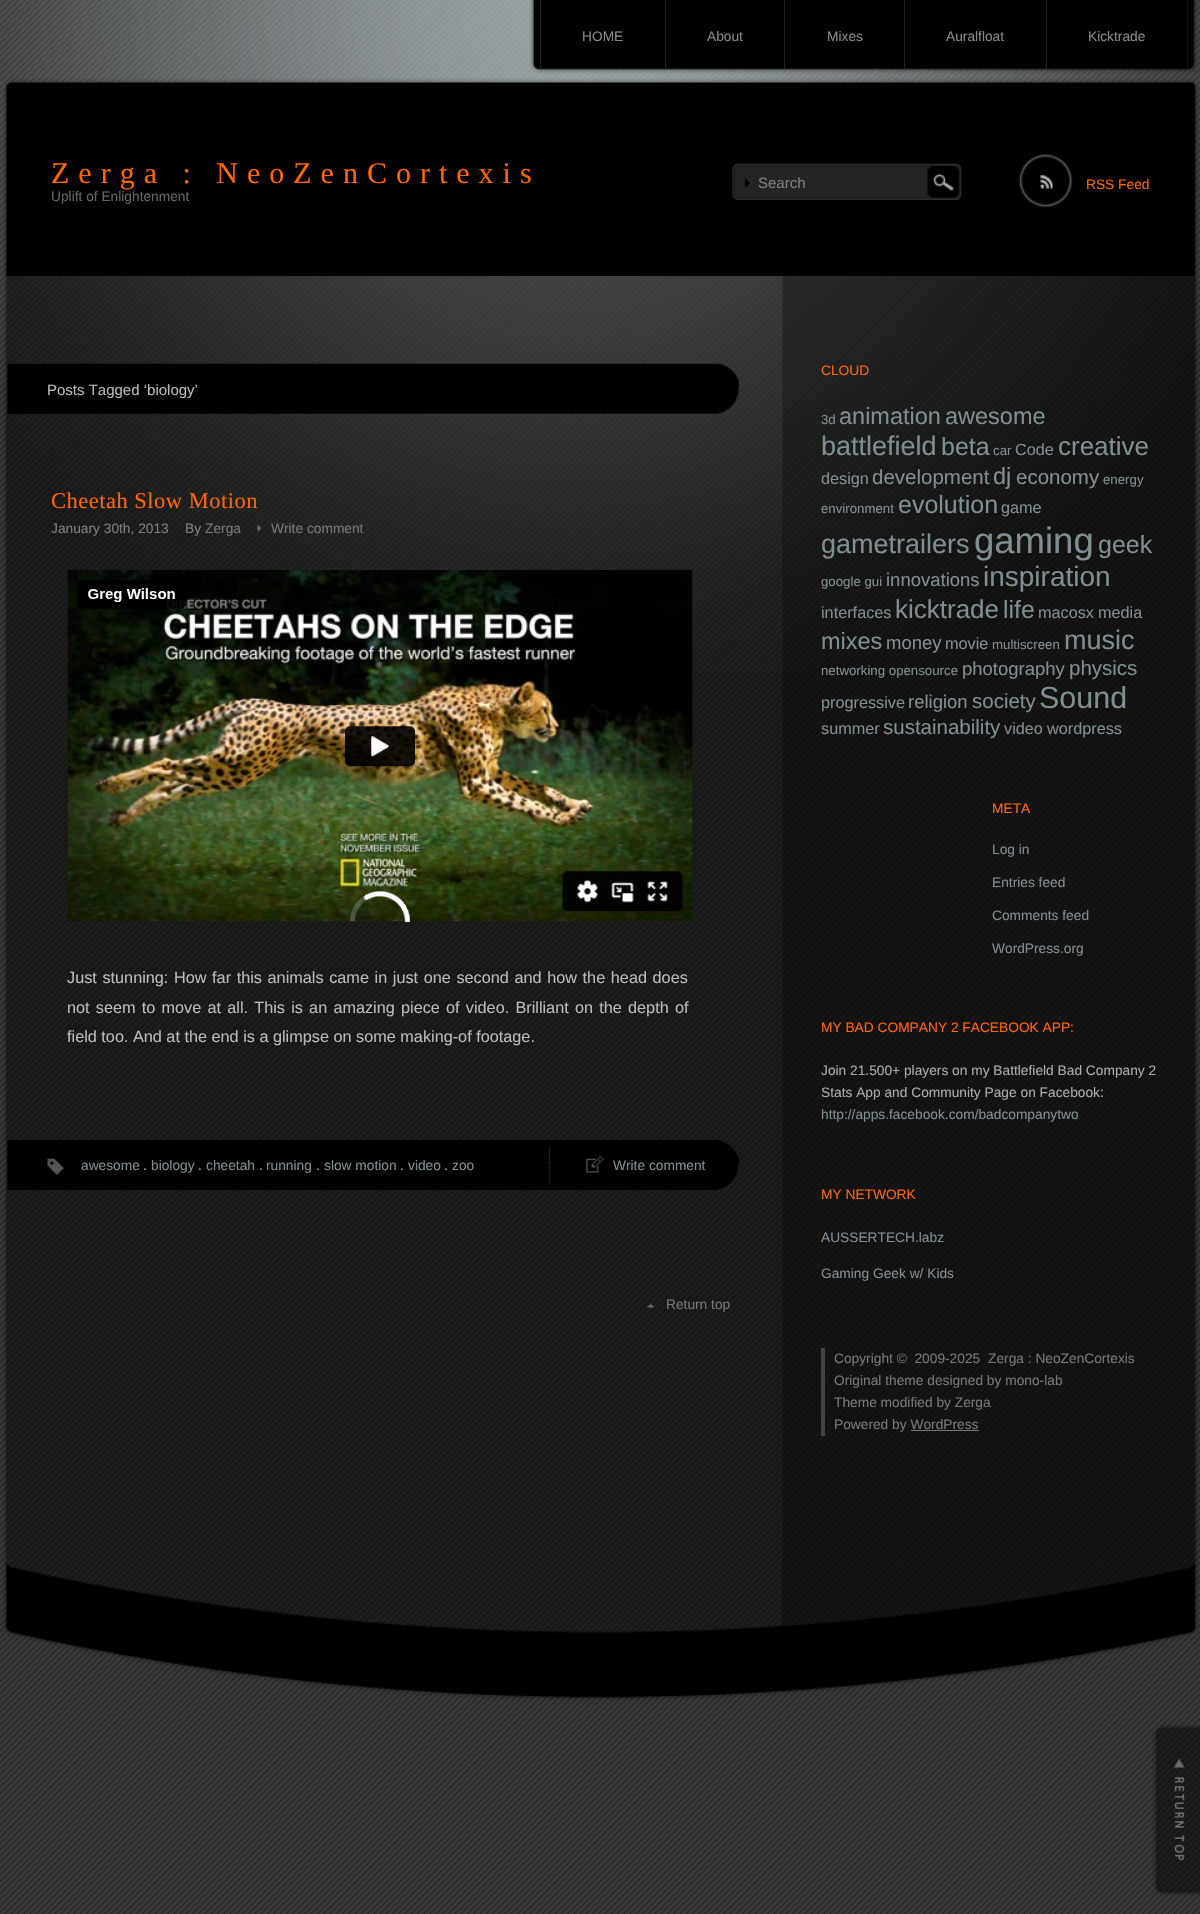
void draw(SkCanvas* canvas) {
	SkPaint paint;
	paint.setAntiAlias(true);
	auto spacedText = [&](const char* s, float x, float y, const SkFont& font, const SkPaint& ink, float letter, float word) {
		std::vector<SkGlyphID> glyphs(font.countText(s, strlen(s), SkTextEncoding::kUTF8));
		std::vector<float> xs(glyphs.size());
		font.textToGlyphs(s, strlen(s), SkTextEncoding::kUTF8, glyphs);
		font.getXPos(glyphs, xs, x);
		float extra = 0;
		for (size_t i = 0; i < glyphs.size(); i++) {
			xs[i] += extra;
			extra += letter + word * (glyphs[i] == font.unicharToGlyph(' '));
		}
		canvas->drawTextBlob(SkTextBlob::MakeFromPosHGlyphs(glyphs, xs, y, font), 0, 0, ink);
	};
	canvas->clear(0xffffffff);
	canvas->drawImageRect(SkImages::DeferredFromEncodedData(SkData::MakeFromFileName("img1.png")), SkRect::MakeXYWH(0, 0, 1200, 1914), SkSamplingOptions());
	canvas->drawImageRect(SkImages::DeferredFromEncodedData(SkData::MakeFromFileName("img2.png")), SkRect::MakeXYWH(0, 0, 1200, 672), SkSamplingOptions());
	canvas->drawImageRect(SkImages::DeferredFromEncodedData(SkData::MakeFromFileName("img3.png")), SkRect::MakeXYWH(529, 0, 11, 73), SkSamplingOptions());
	canvas->drawImageRect(SkImages::DeferredFromEncodedData(SkData::MakeFromFileName("img5.png")), SkRect::MakeXYWH(1187, 0, 10, 72), SkSamplingOptions());
	canvas->drawImageRect(SkImages::DeferredFromEncodedData(SkData::MakeFromFileName("img4.png")), SkRect::MakeXYWH(540, 0, 648, 74), SkSamplingOptions());
	paint.setColor(0xff222222);
	canvas->drawRect(SkRect::MakeXYWH(540, 0, 1, 69), paint);
	SkFont f1(fontMgr->matchFamilyStyle("Liberation Sans", SkFontStyle::Normal()), 13.75);
	f1.setSubpixel(true);
	paint.setColor(0xff888888);
	canvas->drawString("HOME", 582, 41, f1, paint);
	paint.setColor(0xff222222);
	canvas->drawRect(SkRect::MakeXYWH(665, 0, 1, 69), paint);
	paint.setColor(0xff888888);
	canvas->drawString("About", 707, 41, f1, paint);
	paint.setColor(0xff222222);
	canvas->drawRect(SkRect::MakeXYWH(784, 0, 1, 69), paint);
	paint.setColor(0xff888888);
	canvas->drawString("Mixes", 827, 41, f1, paint);
	paint.setColor(0xff222222);
	canvas->drawRect(SkRect::MakeXYWH(904, 0, 1, 69), paint);
	paint.setColor(0xff888888);
	canvas->drawString("Auralfloat", 946, 41, f1, paint);
	paint.setColor(0xff222222);
	canvas->drawRect(SkRect::MakeXYWH(1046, 0, 1, 69), paint);
	paint.setColor(0xff888888);
	canvas->drawString("Kicktrade", 1088, 41, f1, paint);
	canvas->drawImageRect(SkImages::DeferredFromEncodedData(SkData::MakeFromFileName("img6.png")), SkRect::MakeXYWH(3, 78, 1196, 199), SkSamplingOptions());
	SkFont f2(fontMgr->matchFamilyStyle("Liberation Serif", SkFontStyle::Normal()), 30);
	f2.setSubpixel(true);
	paint.setColor(0xffff6600);
	spacedText("Zerga : NeoZenCortexis", 51, 183, f2, paint, 9, 0);
	paint.setColor(0xff666666);
	canvas->drawString("Uplift of Enlightenment", 51, 201, f1, paint);
	canvas->drawImageRect(SkImages::DeferredFromEncodedData(SkData::MakeFromFileName("img7.png")), SkRect::MakeXYWH(732, 163, 197, 37), SkSamplingOptions());
	SkFont f3(fontMgr->matchFamilyStyle("Liberation Sans", SkFontStyle::Normal()), 15);
	f3.setSubpixel(true);
	paint.setColor(0xff797f80);
	canvas->drawString("Search", 758, 188, f3, paint);
	canvas->drawImageRect(SkImages::DeferredFromEncodedData(SkData::MakeFromFileName("img8.png")), SkRect::MakeXYWH(927, 163, 35, 37), SkSamplingOptions());
	canvas->drawImageRect(SkImages::DeferredFromEncodedData(SkData::MakeFromFileName("img9.png")), SkRect::MakeXYWH(1019, 154, 54, 54), SkSamplingOptions());
	paint.setColor(0xffff6600);
	canvas->drawString("RSS Feed", 1086, 189, f1, paint);
	canvas->drawImageRect(SkImages::DeferredFromEncodedData(SkData::MakeFromFileName("img10.png")), SkRect::MakeXYWH(3, 276, 1196, 1286), SkSamplingOptions());
	canvas->drawImageRect(SkImages::DeferredFromEncodedData(SkData::MakeFromFileName("img11.png")), SkRect::MakeXYWH(7, 363, 732, 20), SkSamplingOptions());
	canvas->drawImageRect(SkImages::DeferredFromEncodedData(SkData::MakeFromFileName("img12.png")), SkRect::MakeXYWH(7, 380, 732, 34), SkSamplingOptions());
	paint.setColor(0xffb8babb);
	canvas->drawString("Posts Tagged ‘biology’", 47, 395, f3, paint);
	SkFont f4(fontMgr->matchFamilyStyle("Liberation Serif", SkFontStyle::Normal()), 22.5);
	f4.setSubpixel(true);
	paint.setColor(0xffff6600);
	spacedText("Cheetah Slow Motion", 51, 508, f4, paint, 0.5, 0);
	paint.setColor(0xff797f80);
	canvas->drawString("January 30th, 2013", 51, 533, f1, paint);
	canvas->drawString("By", 185, 533, f1, paint);
	paint.setColor(0xff777777);
	canvas->drawString("Zerga", 205, 533, f1, paint);
	canvas->drawImageRect(SkImages::DeferredFromEncodedData(SkData::MakeFromFileName("img13.png")), SkRect::MakeXYWH(257, 525, 5, 7), SkSamplingOptions());
	canvas->drawString("Write comment", 271, 533, f1, paint);
	canvas->drawImageRect(SkImages::DeferredFromEncodedData(SkData::MakeFromFileName("img14.png")), SkRect::MakeXYWH(67, 570, 626, 352), SkSamplingOptions());
	SkFont f5(fontMgr->matchFamilyStyle("Liberation Sans", SkFontStyle::Normal()), 16.25);
	f5.setSubpixel(true);
	paint.setColor(0xffb8babb);
	spacedText("Just stunning: How far this animals came in just one second and how the head does", 67, 983, f5, paint, 0, 1.1);
	spacedText("not seem to move at all. This is an amazing piece of video. Brilliant on the depth of", 67, 1013, f5, paint, 0, 1.7);
	canvas->drawString("field too. And at the end is a glimpse on some making-of footage.", 67, 1042, f5, paint);
	canvas->drawImageRect(SkImages::DeferredFromEncodedData(SkData::MakeFromFileName("img15.png")), SkRect::MakeXYWH(7, 1140, 732, 19), SkSamplingOptions());
	canvas->drawImageRect(SkImages::DeferredFromEncodedData(SkData::MakeFromFileName("img16.png")), SkRect::MakeXYWH(7, 1156, 732, 34), SkSamplingOptions());
	canvas->drawImageRect(SkImages::DeferredFromEncodedData(SkData::MakeFromFileName("img17.png")), SkRect::MakeXYWH(47, 1158, 17, 17), SkSamplingOptions());
	paint.setColor(0xff7f8e91);
	canvas->drawString("awesome", 81, 1170, f1, paint);
	paint.setColor(0xffb8babb);
	canvas->drawString(".", 143, 1170, f1, paint);
	paint.setColor(0xff7f8e91);
	canvas->drawString("biology", 151, 1170, f1, paint);
	paint.setColor(0xffb8babb);
	canvas->drawString(".", 198, 1170, f1, paint);
	paint.setColor(0xff7f8e91);
	canvas->drawString("cheetah", 206, 1170, f1, paint);
	paint.setColor(0xffb8babb);
	canvas->drawString(".", 259, 1170, f1, paint);
	paint.setColor(0xff7f8e91);
	canvas->drawString("running", 266, 1170, f1, paint);
	paint.setColor(0xffb8babb);
	canvas->drawString(".", 316, 1170, f1, paint);
	paint.setColor(0xff7f8e91);
	canvas->drawString("slow motion", 324, 1170, f1, paint);
	paint.setColor(0xffb8babb);
	canvas->drawString(".", 400, 1170, f1, paint);
	paint.setColor(0xff7f8e91);
	canvas->drawString("video", 408, 1170, f1, paint);
	paint.setColor(0xffb8babb);
	canvas->drawString(".", 444, 1170, f1, paint);
	paint.setColor(0xff7f8e91);
	canvas->drawString("zoo", 452, 1170, f1, paint);
	canvas->drawImageRect(SkImages::DeferredFromEncodedData(SkData::MakeFromFileName("img18.png")), SkRect::MakeXYWH(586, 1156, 18, 17), SkSamplingOptions());
	canvas->drawString("Write comment", 613, 1170, f1, paint);
	canvas->drawImageRect(SkImages::DeferredFromEncodedData(SkData::MakeFromFileName("img19.png")), SkRect::MakeXYWH(647, 1303, 7, 5), SkSamplingOptions());
	paint.setColor(0xff777777);
	canvas->drawString("Return top", 666, 1309, f1, paint);
	paint.setColor(0xffff6600);
	canvas->drawString("CLOUD", 821, 375, f1, paint);
	SkFont f6(fontMgr->matchFamilyStyle("Liberation Sans", SkFontStyle::Normal()), 13.25);
	f6.setSubpixel(true);
	paint.setColor(0xff7f8e91);
	canvas->drawString("3d", 821, 424, f6, paint);
	SkFont f7(fontMgr->matchFamilyStyle("Liberation Sans", SkFontStyle::Normal()), 23.5);
	f7.setSubpixel(true);
	canvas->drawString("animation", 839, 424, f7, paint);
	canvas->drawString("awesome", 945, 424, f7, paint);
	SkFont f8(fontMgr->matchFamilyStyle("Liberation Sans", SkFontStyle::Normal()), 27);
	f8.setSubpixel(true);
	canvas->drawString("battlefield", 821, 455, f8, paint);
	SkFont f9(fontMgr->matchFamilyStyle("Liberation Sans", SkFontStyle::Normal()), 25);
	f9.setSubpixel(true);
	canvas->drawString("beta", 941, 455, f9, paint);
	canvas->drawString("car", 993, 455, f6, paint);
	canvas->drawString("Code", 1015, 455, f5, paint);
	SkFont f10(fontMgr->matchFamilyStyle("Liberation Sans", SkFontStyle::Normal()), 26);
	f10.setSubpixel(true);
	canvas->drawString("creative", 1058, 455, f10, paint);
	canvas->drawString("design", 821, 484, f5, paint);
	SkFont f11(fontMgr->matchFamilyStyle("Liberation Sans", SkFontStyle::Normal()), 20.5);
	f11.setSubpixel(true);
	canvas->drawString("development", 872, 484, f11, paint);
	canvas->drawString("dj", 993, 484, f7, paint);
	canvas->drawString("economy", 1016, 484, f11, paint);
	canvas->drawString("energy", 1103, 484, f6, paint);
	canvas->drawString("environment", 821, 513, f6, paint);
	canvas->drawString("evolution", 898, 513, f9, paint);
	canvas->drawString("game", 1001, 513, f5, paint);
	canvas->drawString("gametrailers", 821, 553, f8, paint);
	SkFont f12(fontMgr->matchFamilyStyle("Liberation Sans", SkFontStyle::Normal()), 36.5);
	f12.setSubpixel(true);
	canvas->drawString("gaming", 974, 553, f12, paint);
	canvas->drawString("geek", 1098, 553, f9, paint);
	canvas->drawString("google gui", 821, 586, f6, paint);
	SkFont f13(fontMgr->matchFamilyStyle("Liberation Sans", SkFontStyle::Normal()), 18.5);
	f13.setSubpixel(true);
	canvas->drawString("innovations", 886, 586, f13, paint);
	SkFont f14(fontMgr->matchFamilyStyle("Liberation Sans", SkFontStyle::Normal()), 28);
	f14.setSubpixel(true);
	canvas->drawString("inspiration", 983, 586, f14, paint);
	canvas->drawString("interfaces", 821, 618, f5, paint);
	canvas->drawString("kicktrade", 895, 618, f10, paint);
	canvas->drawString("life", 1003, 618, f9, paint);
	canvas->drawString("macosx", 1038, 618, f5, paint);
	canvas->drawString("media", 1098, 618, f5, paint);
	canvas->drawString("mixes", 821, 649, f7, paint);
	canvas->drawString("money", 886, 649, f13, paint);
	canvas->drawString("movie", 945, 649, f5, paint);
	canvas->drawString("multiscreen", 992, 649, f6, paint);
	canvas->drawString("music", 1064, 649, f8, paint);
	canvas->drawString("networking opensource", 821, 675, f6, paint);
	canvas->drawString("photography", 962, 675, f13, paint);
	canvas->drawString("physics", 1069, 675, f11, paint);
	canvas->drawString("progressive", 821, 708, f5, paint);
	canvas->drawString("religion", 908, 708, f13, paint);
	canvas->drawString("society", 972, 708, f11, paint);
	SkFont f15(fontMgr->matchFamilyStyle("Liberation Sans", SkFontStyle::Normal()), 30.5);
	f15.setSubpixel(true);
	canvas->drawString("Sound", 1039, 708, f15, paint);
	canvas->drawString("summer", 821, 734, f5, paint);
	canvas->drawString("sustainability", 883, 734, f11, paint);
	canvas->drawString("video", 1004, 734, f5, paint);
	canvas->drawString("wordpress", 1047, 734, f5, paint);
	paint.setColor(0xffff6600);
	canvas->drawString("META", 992, 813, f1, paint);
	paint.setColor(0xff7f8e91);
	canvas->drawString("Log in", 992, 854, f1, paint);
	canvas->drawString("Entries feed", 992, 887, f1, paint);
	canvas->drawString("Comments feed", 992, 920, f1, paint);
	canvas->drawString("WordPress.org", 992, 953, f1, paint);
	paint.setColor(0xffff6600);
	canvas->drawString("MY BAD COMPANY 2 FACEBOOK APP:", 821, 1032, f1, paint);
	paint.setColor(0xffaaaaaa);
	canvas->drawString("Join 21.500+ players on my Battlefield Bad Company 2", 821, 1075, f1, paint);
	canvas->drawString("Stats App and Community Page on Facebook:", 821, 1097, f1, paint);
	paint.setColor(0xff7f8e91);
	canvas->drawString("http://apps.facebook.com/badcompanytwo", 821, 1119, f1, paint);
	paint.setColor(0xffff6600);
	canvas->drawString("MY NETWORK", 821, 1199, f1, paint);
	paint.setColor(0xff7f8e91);
	canvas->drawString("AUSSERTECH.labz", 821, 1242, f1, paint);
	canvas->drawString("Gaming Geek w/ Kids", 821, 1278, f1, paint);
	paint.setColor(0xff444444);
	canvas->drawRect(SkRect::MakeXYWH(821, 1348, 4, 88), paint);
	paint.setColor(0xff777777);
	canvas->drawString("Copyright ©  2009-2025", 834, 1363, f1, paint);
	canvas->drawString("Zerga : NeoZenCortexis", 988, 1363, f1, paint);
	canvas->drawString("Original theme designed by mono-lab", 834, 1385, f1, paint);
	canvas->drawString("Theme modified by Zerga", 834, 1407, f1, paint);
	canvas->drawString("Powered by WordPress", 834, 1429, f1, paint);
	canvas->drawRect(SkRect::MakeXYWH(911, 1430, 68, 1), paint);
	canvas->drawImageRect(SkImages::DeferredFromEncodedData(SkData::MakeFromFileName("img20.png")), SkRect::MakeXYWH(3, 1561, 1196, 139), SkSamplingOptions());
	canvas->drawImageRect(SkImages::DeferredFromEncodedData(SkData::MakeFromFileName("img21.png")), SkRect::MakeXYWH(1153, 1725, 47, 170), SkSamplingOptions());
}
